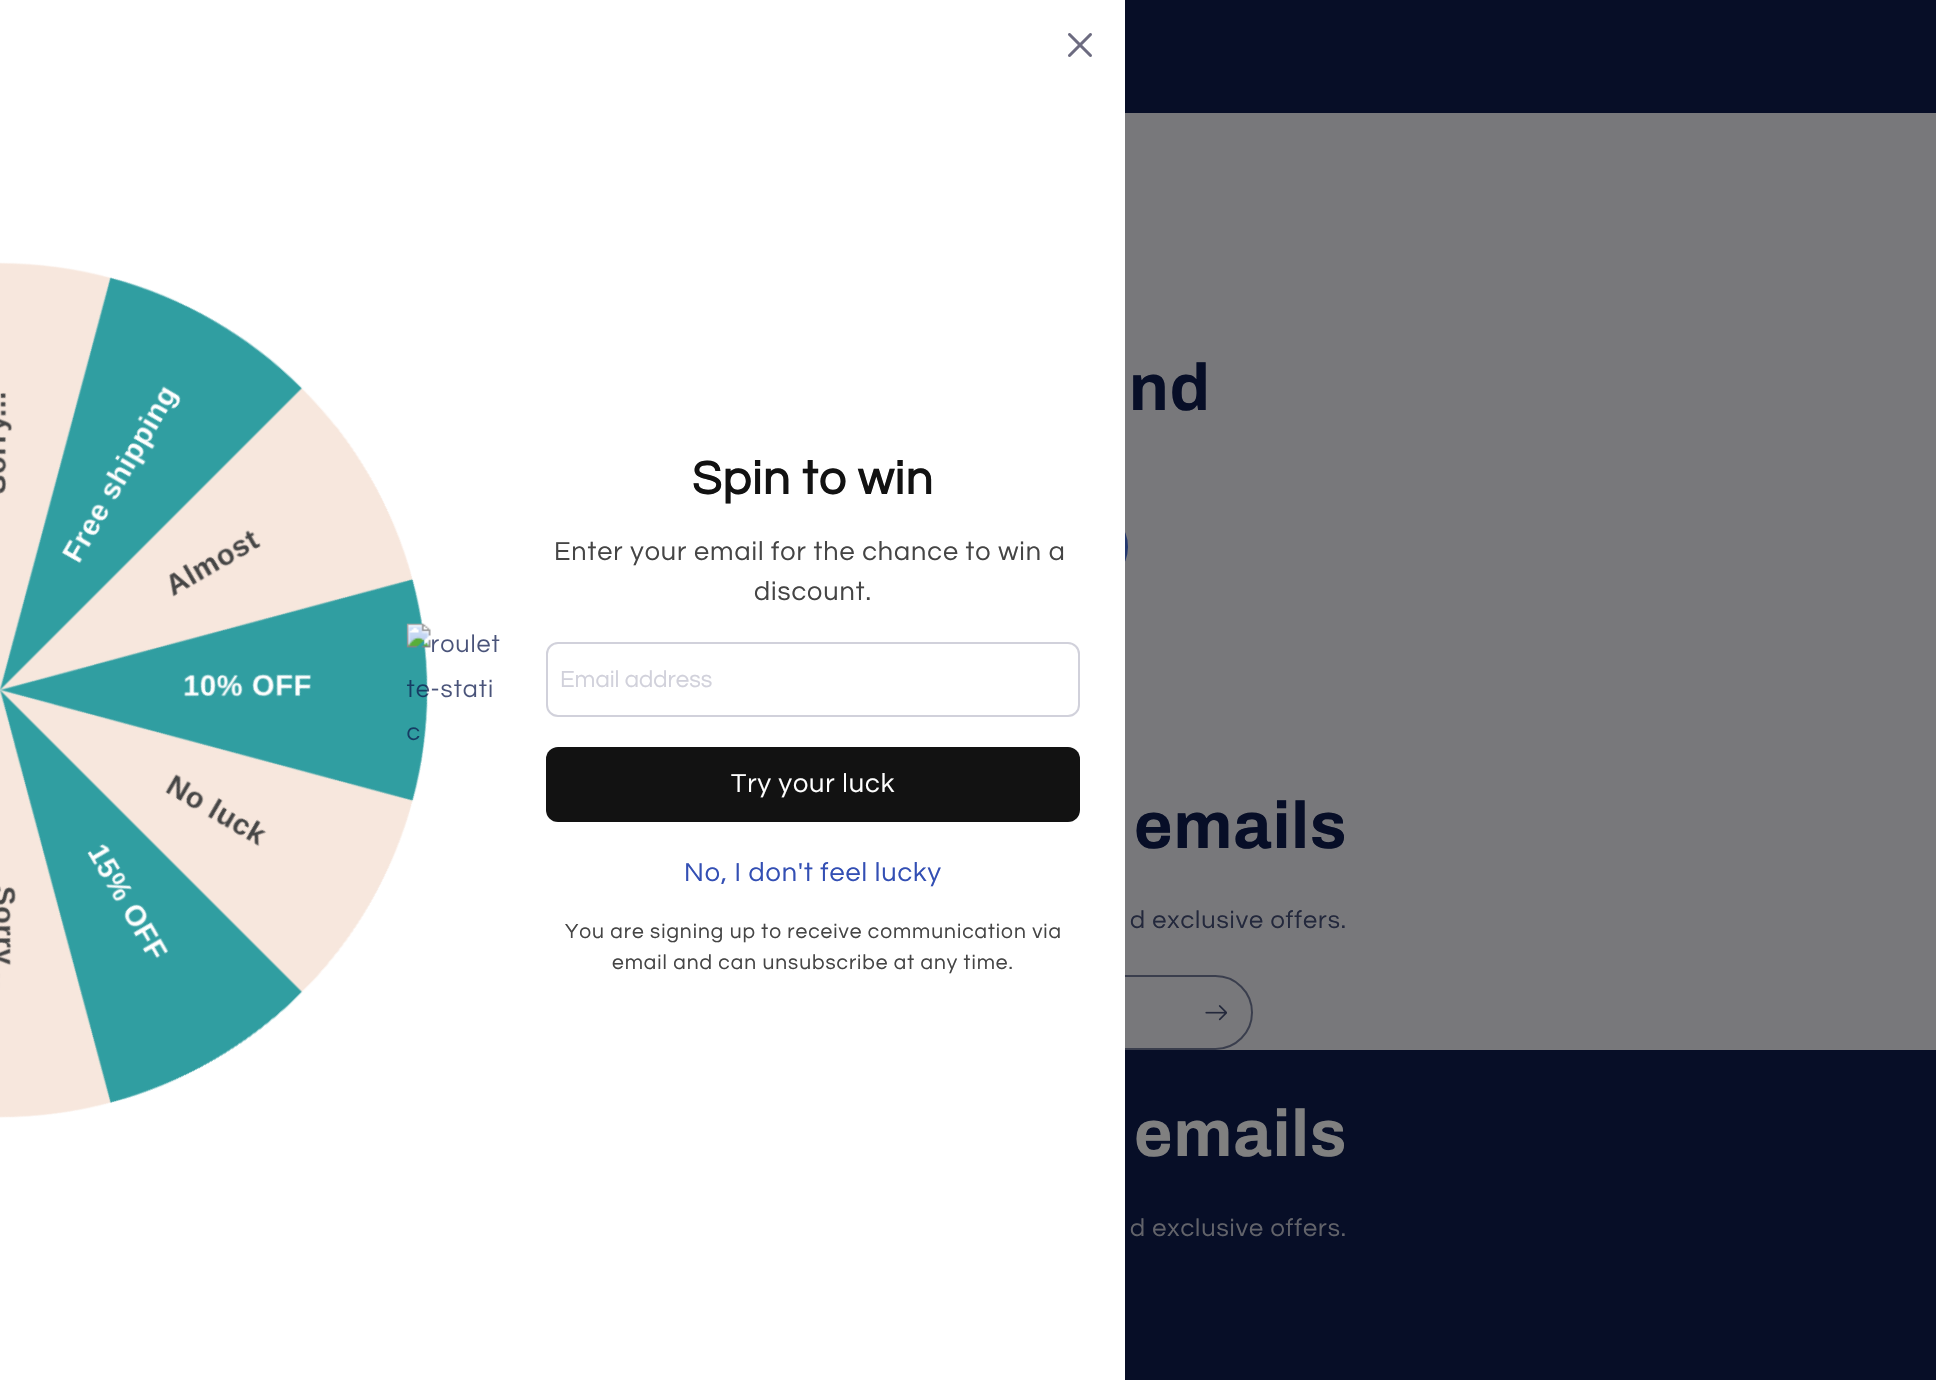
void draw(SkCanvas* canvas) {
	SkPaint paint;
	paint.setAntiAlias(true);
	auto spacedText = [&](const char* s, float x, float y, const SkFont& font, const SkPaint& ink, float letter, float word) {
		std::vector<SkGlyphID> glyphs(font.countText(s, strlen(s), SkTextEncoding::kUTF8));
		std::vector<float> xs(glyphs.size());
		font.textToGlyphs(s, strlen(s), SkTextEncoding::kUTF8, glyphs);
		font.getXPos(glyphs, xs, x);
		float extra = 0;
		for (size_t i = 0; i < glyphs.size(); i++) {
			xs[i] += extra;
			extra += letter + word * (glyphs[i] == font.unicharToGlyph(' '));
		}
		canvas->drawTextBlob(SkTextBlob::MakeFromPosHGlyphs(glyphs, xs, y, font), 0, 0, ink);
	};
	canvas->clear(0xff78787b);
	paint.setColor(0xff070e27);
	canvas->drawRect(SkRect::MakeXYWH(1125, 0, 811, 113), paint);
	paint.setColor(0xff24386e);
	canvas->drawRoundRect(SkRect::MakeXYWH(810, 511, 317, 72), 36, 36, paint);
	paint.setStroke(true);
	paint.setStrokeWidth(2);
	canvas->drawRoundRect(SkRect::MakeXYWH(810, 511, 317, 72), 36, 36, paint);
	paint.setColor(0xff3a3e4d);
	canvas->drawRoundRect(SkRect::MakeXYWH(687, 976, 565, 73), 36.5, 36.5, paint);
	paint.setStroke(false);
	paint.setColor(0xffffffff);
	canvas->drawRect(SkRect::MakeXYWH(0, 0, 1125, 1380), paint);
	canvas->drawImageRect(SkImages::DeferredFromEncodedData(SkData::MakeFromFileName("img1.png")), SkRect::MakeXYWH(1068, 33, 24, 24), SkSamplingOptions());
	canvas->drawImageRect(SkImages::DeferredFromEncodedData(SkData::MakeFromFileName("img2.png")), SkRect::MakeXYWH(0, 262, 428, 856), SkSamplingOptions());
	canvas->drawImageRect(SkImages::DeferredFromEncodedData(SkData::MakeFromFileName("img3.png")), SkRect::MakeXYWH(406, 623, 94, 118), SkSamplingOptions());
	SkFont f1(fontMgr->matchFamilyStyle("Questrial", SkFontStyle::Bold()), 48);
	f1.setSubpixel(true);
	paint.setColor(0xff121212);
	spacedText("Spin to win", 692, 494, f1, paint, 0.95, 0);
	SkFont f2(fontMgr->matchFamilyStyle("Questrial", SkFontStyle::Normal()), 27);
	f2.setSubpixel(true);
	paint.setColor(0xff454545);
	spacedText("Enter your email for the chance to win a", 554, 560, f2, paint, 0.95, 0);
	spacedText("discount.", 754, 600, f2, paint, 0.95, 0);
	paint.setStroke(true);
	paint.setColor(0xffd1d1db);
	canvas->drawRoundRect(SkRect::MakeXYWH(547, 643, 532, 73), 11, 11, paint);
	SkFont f3(fontMgr->matchFamilyStyle("Questrial", SkFontStyle::Normal()), 24);
	f3.setSubpixel(true);
	paint.setStroke(false);
	canvas->drawString("Email address", 560, 687, f3, paint);
	paint.setColor(0xff121212);
	canvas->drawRoundRect(SkRect::MakeXYWH(546, 747, 534, 75), 12, 12, paint);
	paint.setColor(0xffffffff);
	spacedText("Try your luck", 731, 792, f2, paint, 0.95, 0);
	paint.setColor(0xff334fb4);
	spacedText("No, I don't feel lucky", 684, 881, f2, paint, 0.95, 0);
	SkFont f4(fontMgr->matchFamilyStyle("Questrial", SkFontStyle::Normal()), 21);
	f4.setSubpixel(true);
	paint.setColor(0xff454545);
	spacedText("You are signing up to receive communication via", 565, 938, f4, paint, 0.95, 0);
	spacedText("email and can unsubscribe at any time.", 612, 969, f4, paint, 0.95, 0);
	SkFont f5(fontMgr->matchFamilyStyle("Archivo", SkFontStyle::Bold()), 66);
	f5.setSubpixel(true);
	paint.setColor(0xff070e27);
	spacedText("nd", 1129, 410, f5, paint, 1, 0);
	spacedText("emails", 1134, 848, f5, paint, 1, 0);
	SkFont f6(fontMgr->matchFamilyStyle("Questrial", SkFontStyle::Normal()), 25.25);
	f6.setSubpixel(true);
	paint.setColor(0xff23283c);
	spacedText("d exclusive offers.", 1130, 928, f6, paint, 0.95, 0);
	canvas->drawImageRect(SkImages::DeferredFromEncodedData(SkData::MakeFromFileName("img4.png")), SkRect::MakeXYWH(1205, 1005, 22, 16), SkSamplingOptions());
	paint.setColor(0xff070e27);
	canvas->drawRect(SkRect::MakeXYWH(1125, 1050, 811, 330), paint);
	paint.setColor(0xff808080);
	spacedText("emails", 1134, 1156, f5, paint, 1, 0);
	paint.setColor(0xff62636a);
	spacedText("d exclusive offers.", 1130, 1236, f6, paint, 0.95, 0);
}
